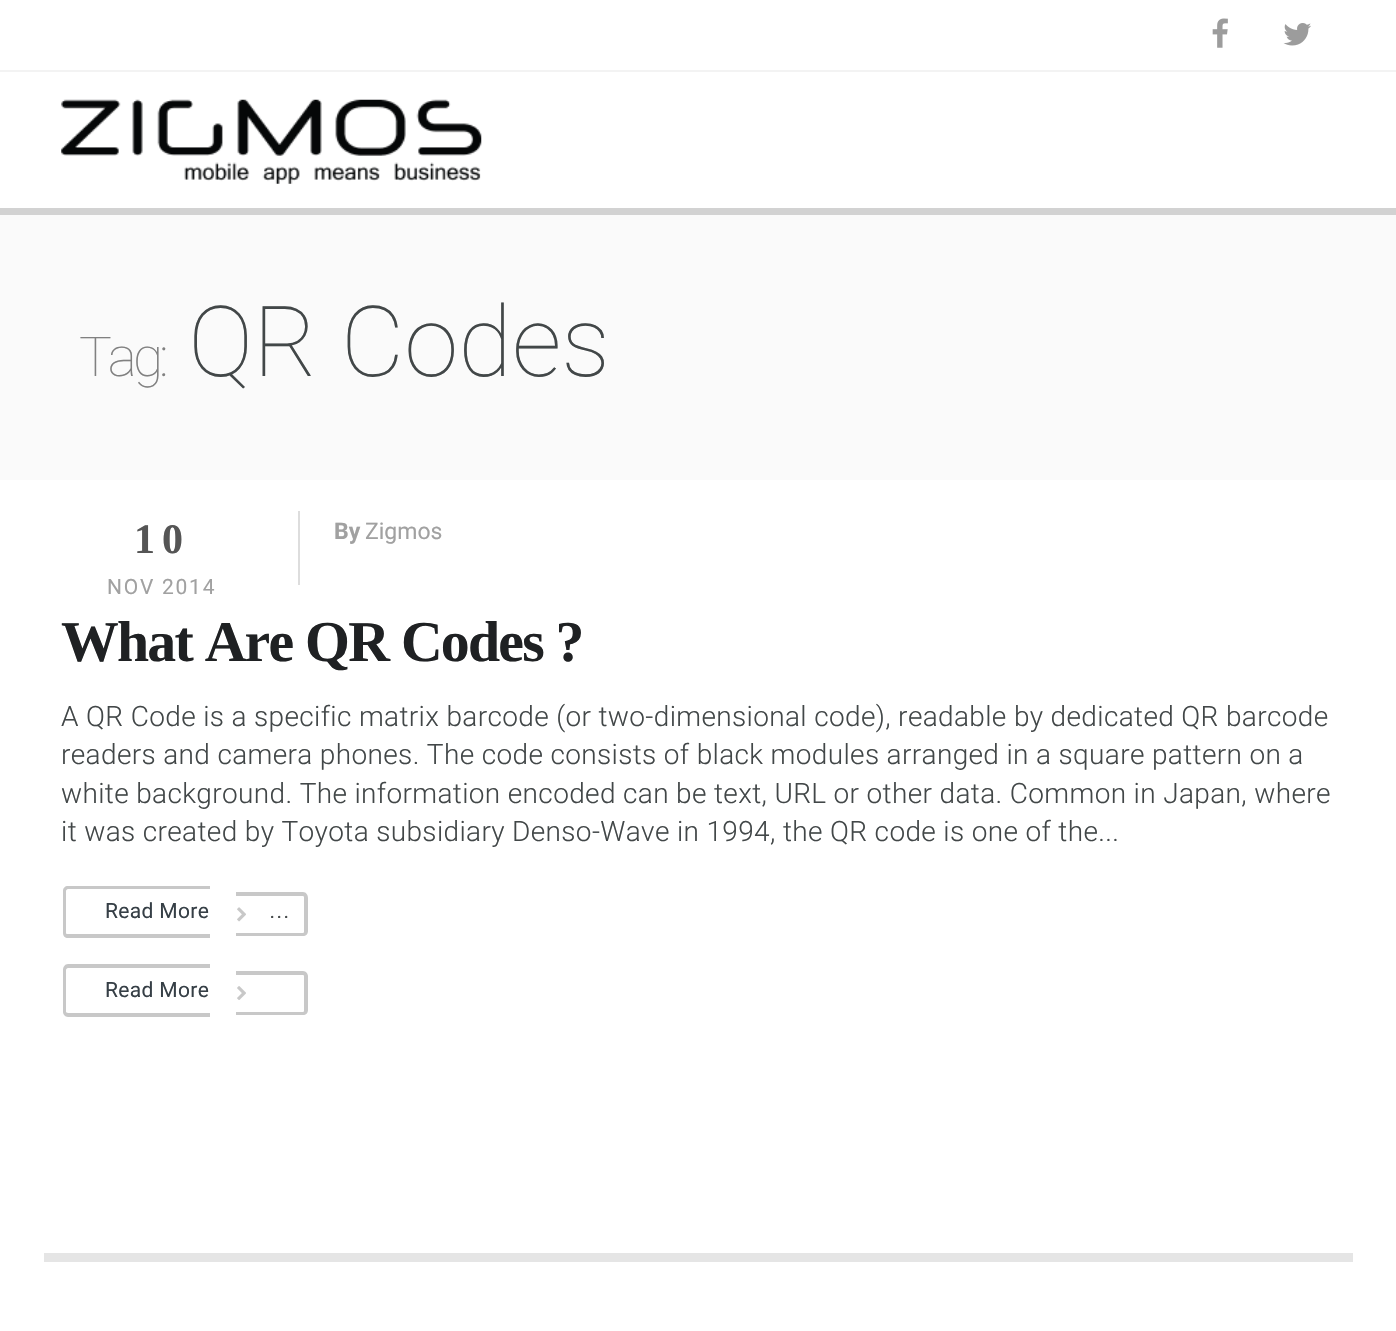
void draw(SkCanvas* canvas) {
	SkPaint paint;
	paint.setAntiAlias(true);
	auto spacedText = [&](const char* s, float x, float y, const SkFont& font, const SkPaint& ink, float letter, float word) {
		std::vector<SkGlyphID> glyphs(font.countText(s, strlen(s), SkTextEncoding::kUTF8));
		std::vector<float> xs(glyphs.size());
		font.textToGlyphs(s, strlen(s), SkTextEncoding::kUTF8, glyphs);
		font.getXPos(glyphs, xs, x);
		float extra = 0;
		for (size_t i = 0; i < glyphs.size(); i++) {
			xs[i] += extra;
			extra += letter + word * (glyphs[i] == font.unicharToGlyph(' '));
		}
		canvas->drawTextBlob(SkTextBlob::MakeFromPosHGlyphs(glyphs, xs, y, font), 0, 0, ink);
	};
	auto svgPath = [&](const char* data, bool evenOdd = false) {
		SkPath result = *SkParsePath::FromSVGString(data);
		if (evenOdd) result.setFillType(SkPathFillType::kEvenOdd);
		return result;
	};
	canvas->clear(0xffffffff);
	paint.setColor(0xfff3f3f3);
	canvas->drawRect(SkRect::MakeXYWH(0, 70, 1396, 2), paint);
	canvas->drawImageRect(SkImages::DeferredFromEncodedData(SkData::MakeFromFileName("img1.png")), SkRect::MakeXYWH(1212, 18, 16, 30), SkSamplingOptions());
	canvas->drawImageRect(SkImages::DeferredFromEncodedData(SkData::MakeFromFileName("img2.png")), SkRect::MakeXYWH(1283, 23, 28, 23), SkSamplingOptions());
	paint.setColor(0xffd2d2d2);
	canvas->drawRect(SkRect::MakeXYWH(0, 208, 1396, 7), paint);
	canvas->drawImageRect(SkImages::DeferredFromEncodedData(SkData::MakeFromFileName("img3.png")), SkRect::MakeXYWH(61, 99, 421, 85), SkSamplingOptions());
	paint.setColor(0xfffafafa);
	canvas->drawRect(SkRect::MakeXYWH(0, 215, 1396, 265), paint);
	SkFont f1(fontMgr->matchFamilyStyle("Roboto", SkFontStyle(100, SkFontStyle::kNormal_Width, SkFontStyle::kUpright_Slant)), 55);
	f1.setSubpixel(true);
	paint.setColor(0xff808080);
	spacedText("Tag:", 79, 376, f1, paint, -4, 0);
	SkFont f2(fontMgr->matchFamilyStyle("Roboto", SkFontStyle(100, SkFontStyle::kNormal_Width, SkFontStyle::kUpright_Slant)), 98);
	f2.setSubpixel(true);
	paint.setColor(0xff424748);
	canvas->drawString("QR Codes", 188, 376, f2, paint);
	paint.setColor(0xffdddddd);
	canvas->drawRect(SkRect::MakeXYWH(298, 511, 2, 74), paint);
	SkFont f3(fontMgr->matchFamilyStyle("Liberation Serif", SkFontStyle::Bold()), 42);
	f3.setSubpixel(true);
	paint.setColor(0xff555555);
	spacedText("10", 134, 553, f3, paint, 7, 0);
	SkFont f4(fontMgr->matchFamilyStyle("Roboto", SkFontStyle::Normal()), 21);
	f4.setSubpixel(true);
	paint.setColor(0xffa1a1a1);
	spacedText("NOV 2014", 107, 594, f4, paint, 1.75, 0);
	SkFont f5(fontMgr->matchFamilyStyle("Roboto", SkFontStyle::Bold()), 23);
	f5.setSubpixel(true);
	canvas->drawString("By", 334, 539, f5, paint);
	SkFont f6(fontMgr->matchFamilyStyle("Roboto", SkFontStyle::Normal()), 23);
	f6.setSubpixel(true);
	canvas->drawString("Zigmos", 365, 539, f6, paint);
	SkFont f7(fontMgr->matchFamilyStyle("Liberation Serif", SkFontStyle::Bold()), 57.75);
	f7.setSubpixel(true);
	paint.setColor(0xff1f2123);
	spacedText("What Are QR Codes ?", 61, 661, f7, paint, -1.75, 0);
	SkFont f8(fontMgr->matchFamilyStyle("Roboto", SkFontStyle(300, SkFontStyle::kNormal_Width, SkFontStyle::kUpright_Slant)), 28);
	f8.setSubpixel(true);
	paint.setColor(0xff424748);
	spacedText("A QR Code is a specific matrix barcode (or two-dimensional code), readable by dedicated QR barcode", 61, 726, f8, paint, 0.35, 0);
	spacedText("readers and camera phones. The code consists of black modules arranged in a square pattern on a", 61, 764, f8, paint, 0.35, 0);
	spacedText("white background. The information encoded can be text, URL or other data. Common in Japan, where", 61, 803, f8, paint, 0.35, 0);
	spacedText("it was created by Toyota subsidiary Denso-Wave in 1994, the QR code is one of the...", 61, 841, f8, paint, 0.35, 0);
	paint.setColor(0xffc8c8c8);
	canvas->drawPath(svgPath("M68 886H210V938H68C65 938 63 936 63 933V891C63 888 65 886 68 886ZM68 889H210V934H68C67 934 66 934 66 933V891C66 890 67 889 68 889Z", true), paint);
	paint.setColor(0xff424748);
	spacedText("...", 269, 918, f8, paint, 0.35, 0);
	paint.setColor(0xffc8c8c8);
	canvas->drawPath(svgPath("M236 892H303C306 892 308 895 308 898V931C308 934 306 936 303 936H236ZM236 896H303C304 896 304 897 304 898V931C304 932 304 933 303 933H236Z", true), paint);
	paint.setColor(0xff363f46);
	spacedText("Read More", 105, 918, f4, paint, 0.35, 0);
	canvas->drawImageRect(SkImages::DeferredFromEncodedData(SkData::MakeFromFileName("img4.png")), SkRect::MakeXYWH(237, 907, 9, 15), SkSamplingOptions());
	paint.setColor(0xffc8c8c8);
	canvas->drawPath(svgPath("M68 964H210V1017H68C65 1017 63 1014 63 1012V970C63 967 65 964 68 964ZM68 968H210V1013H68C67 1013 66 1012 66 1012V970C66 969 67 968 68 968Z", true), paint);
	canvas->drawPath(svgPath("M236 971H303C306 971 308 974 308 976V1010C308 1013 306 1015 303 1015H236ZM236 975H303C304 975 304 976 304 976V1010C304 1011 304 1012 303 1012H236Z", true), paint);
	paint.setColor(0xff363f46);
	spacedText("Read More", 105, 997, f4, paint, 0.35, 0);
	canvas->drawImageRect(SkImages::DeferredFromEncodedData(SkData::MakeFromFileName("img5.png")), SkRect::MakeXYWH(237, 986, 9, 14), SkSamplingOptions());
	paint.setColor(0xffe5e5e5);
	canvas->drawRect(SkRect::MakeXYWH(44, 1253, 1309, 9), paint);
}
